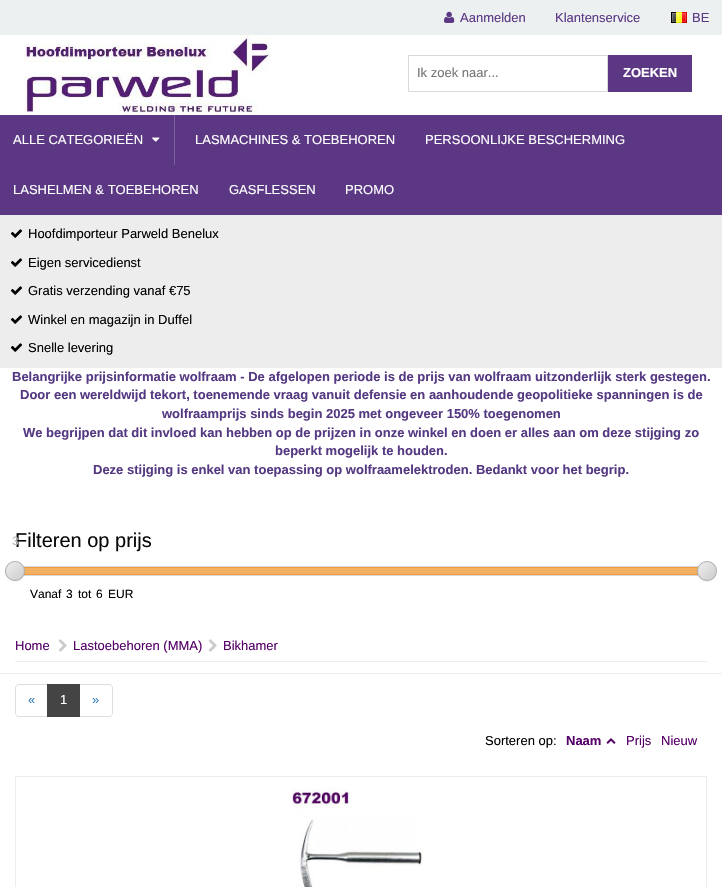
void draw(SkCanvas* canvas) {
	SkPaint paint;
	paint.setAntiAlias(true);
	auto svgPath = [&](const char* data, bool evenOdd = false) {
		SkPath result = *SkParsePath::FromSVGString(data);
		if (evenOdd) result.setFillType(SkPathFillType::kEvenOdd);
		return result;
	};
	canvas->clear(0xffffffff);
	paint.setColor(0xffecf0f1);
	canvas->drawRect(SkRect::MakeXYWH(0, 0, 722, 35), paint);
	canvas->drawImageRect(SkImages::DeferredFromEncodedData(SkData::MakeFromFileName("img1.png")), SkRect::MakeXYWH(444, 11, 11, 12), SkSamplingOptions());
	SkFont f1(fontMgr->matchFamilyStyle("Liberation Sans", SkFontStyle::Normal()), 13);
	f1.setSubpixel(true);
	paint.setColor(0xff5b3784);
	canvas->drawString("Aanmelden", 460, 22, f1, paint);
	canvas->drawString("Klantenservice", 555, 22, f1, paint);
	canvas->drawImageRect(SkImages::DeferredFromEncodedData(SkData::MakeFromFileName("img2.png")), SkRect::MakeXYWH(671, 12, 16, 11), SkSamplingOptions());
	canvas->drawString("BE", 692, 22, f1, paint);
	canvas->drawImageRect(SkImages::DeferredFromEncodedData(SkData::MakeFromFileName("img3.png")), SkRect::MakeXYWH(24, 35, 248, 80), SkSamplingOptions());
	paint.setStroke(true);
	paint.setStrokeWidth(1);
	paint.setColor(0xffd9d9d9);
	canvas->drawRect(SkRect::MakeXYWH(408.5, 55.5, 199, 36), paint);
	paint.setStroke(false);
	paint.setColor(0xff757575);
	canvas->drawString("Ik zoek naar...", 417, 77, f1, paint);
	paint.setColor(0xff5b3784);
	canvas->drawRect(SkRect::MakeXYWH(608, 55, 84, 37), paint);
	SkFont f2(fontMgr->matchFamilyStyle("Liberation Sans", SkFontStyle::Bold()), 13);
	f2.setSubpixel(true);
	paint.setColor(0xffffffff);
	canvas->drawString("ZOEKEN", 623, 77, f2, paint);
	paint.setColor(0xff5b3784);
	canvas->drawRect(SkRect::MakeXYWH(0, 115, 722, 100), paint);
	paint.setColor(0xff7c5f9d);
	canvas->drawRect(SkRect::MakeXYWH(174, 115, 1, 50), paint);
	paint.setColor(0xffffffff);
	canvas->drawString("ALLE CATEGORIEËN", 13, 144, f1, paint);
	canvas->drawImageRect(SkImages::DeferredFromEncodedData(SkData::MakeFromFileName("img4.png")), SkRect::MakeXYWH(152, 137, 8, 5), SkSamplingOptions());
	canvas->drawString("LASMACHINES & TOEBEHOREN", 195, 144, f1, paint);
	canvas->drawString("PERSOONLIJKE BESCHERMING", 425, 144, f1, paint);
	canvas->drawString("LASHELMEN & TOEBEHOREN", 13, 194, f1, paint);
	canvas->drawString("GASFLESSEN", 229, 194, f1, paint);
	canvas->drawString("PROMO", 345, 194, f1, paint);
	paint.setColor(0xffededed);
	canvas->drawRect(SkRect::MakeXYWH(0, 215, 722, 153), paint);
	canvas->drawImageRect(SkImages::DeferredFromEncodedData(SkData::MakeFromFileName("img5.png")), SkRect::MakeXYWH(10, 229, 13, 9), SkSamplingOptions());
	paint.setColor(0xff000000);
	canvas->drawString("Hoofdimporteur Parweld Benelux", 28, 238, f1, paint);
	canvas->drawImageRect(SkImages::DeferredFromEncodedData(SkData::MakeFromFileName("img5.png")), SkRect::MakeXYWH(10, 258, 13, 9), SkSamplingOptions());
	canvas->drawString("Eigen servicedienst", 28, 267, f1, paint);
	canvas->drawImageRect(SkImages::DeferredFromEncodedData(SkData::MakeFromFileName("img5.png")), SkRect::MakeXYWH(10, 286, 13, 9), SkSamplingOptions());
	canvas->drawString("Gratis verzending vanaf €75", 28, 295, f1, paint);
	canvas->drawImageRect(SkImages::DeferredFromEncodedData(SkData::MakeFromFileName("img5.png")), SkRect::MakeXYWH(10, 315, 13, 9), SkSamplingOptions());
	canvas->drawString("Winkel en magazijn in Duffel", 28, 324, f1, paint);
	canvas->drawImageRect(SkImages::DeferredFromEncodedData(SkData::MakeFromFileName("img5.png")), SkRect::MakeXYWH(10, 343, 13, 9), SkSamplingOptions());
	canvas->drawString("Snelle levering", 28, 352, f1, paint);
	paint.setColor(0xff553982);
	canvas->drawString("Belangrijke prijsinformatie wolfraam - De afgelopen periode is de prijs van wolfraam uitzonderlijk sterk gestegen.", 12, 381, f2, paint);
	canvas->drawString("Door een wereldwijd tekort, toenemende vraag vanuit defensie en aanhoudende geopolitieke spanningen is de", 20, 399, f2, paint);
	canvas->drawString("wolfraamprijs sinds begin 2025 met ongeveer 150% toegenomen", 162, 418, f2, paint);
	canvas->drawString("We begrijpen dat dit invloed kan hebben op de prijzen in onze winkel en doen er alles aan om deze stijging zo", 23, 437, f2, paint);
	canvas->drawString("beperkt mogelijk te houden.", 275, 455, f2, paint);
	canvas->drawString("Deze stijging is enkel van toepassing op wolfraamelektroden. Bedankt voor het begrip.", 93, 474, f2, paint);
	SkFont f3(fontMgr->matchFamilyStyle("Liberation Sans", SkFontStyle::Normal()), 20);
	f3.setSubpixel(true);
	paint.setColor(0xff070707);
	canvas->drawString("Filteren op prijs", 15, 547, f3, paint);
	SkFont f4(fontMgr->matchFamilyStyle("Liberation Sans", SkFontStyle::Normal()), 12);
	f4.setSubpixel(true);
	paint.setColor(0xffb9b9b9);
	canvas->drawString("3", 12, 545, f4, paint);
	paint.setStroke(true);
	paint.setColor(0xffd9d9d9);
	canvas->drawRect(SkRect::MakeXYWH(15.5, 566.5, 691, 9), paint);
	paint.setStroke(false);
	paint.setColor(0xfff4b062);
	canvas->drawRect(SkRect::MakeXYWH(16.5, 567.5, 689, 7), paint);
	paint.setStroke(true);
	paint.setColor(0xffee9c3f);
	canvas->drawRect(SkRect::MakeXYWH(16.5, 567.5, 689, 7), paint);
	paint.setStroke(false);
	paint.setColor(0x0d000000);
	paint.setMaskFilter(SkMaskFilter::MakeBlur(kNormal_SkBlurStyle, 1));
	canvas->drawRoundRect(SkRect::MakeXYWH(5, 562, 20, 20), 10, 10, paint);
	paint.setMaskFilter(nullptr);
	canvas->save();
	canvas->clipPath(svgPath("M15 561C20.5 561 25 565.5 25 571C25 576.5 20.5 581 15 581C9.5 581 5 576.5 5 571C5 565.5 9.5 561 15 561Z"), true);
	{
		const SkColor colors[] = {0xffeeeeee, 0xffcccccc};
		const float stops[] = {0, 1};
		const SkPoint ends[] = {{6, 562}, {24, 580}};
		paint.setShader(SkGradientShader::MakeLinear(ends, colors, stops, 2, SkTileMode::kClamp));
		paint.setAlpha(255);
	}
	canvas->drawRect(SkRect::MakeXYWH(6, 562, 18, 18), paint);
	canvas->restore();
	paint.setShader(nullptr);
	paint.setColor(0x33ffffff);
	canvas->drawPath(svgPath("M15 563C21 563 24 567 24 571.5C24.5 559 5.5 559 6 571.5C6 567 9 563 15 563Z"), paint);
	paint.setStroke(true);
	paint.setColor(0xffa8aeb2);
	canvas->drawCircle(15, 571, 9.5, paint);
	paint.setStroke(false);
	paint.setColor(0x0d000000);
	paint.setMaskFilter(SkMaskFilter::MakeBlur(kNormal_SkBlurStyle, 1));
	canvas->drawRoundRect(SkRect::MakeXYWH(697, 562, 20, 20), 10, 10, paint);
	paint.setMaskFilter(nullptr);
	canvas->save();
	canvas->clipPath(svgPath("M707 561C712.5 561 717 565.5 717 571C717 576.5 712.5 581 707 581C701.5 581 697 576.5 697 571C697 565.5 701.5 561 707 561Z"), true);
	{
		const SkColor colors[] = {0xffeeeeee, 0xffcccccc};
		const float stops[] = {0, 1};
		const SkPoint ends[] = {{698, 562}, {716, 580}};
		paint.setShader(SkGradientShader::MakeLinear(ends, colors, stops, 2, SkTileMode::kClamp));
		paint.setAlpha(255);
	}
	canvas->drawRect(SkRect::MakeXYWH(698, 562, 18, 18), paint);
	canvas->restore();
	paint.setShader(nullptr);
	paint.setColor(0x33ffffff);
	canvas->drawPath(svgPath("M707 563C713 563 716 567 716 571.5C716.5 559 697.5 559 698 571.5C698 567 701 563 707 563Z"), paint);
	paint.setStroke(true);
	paint.setColor(0xffa8aeb2);
	canvas->drawCircle(707, 571, 9.5, paint);
	paint.setStroke(false);
	paint.setColor(0xff000000);
	canvas->drawString("Vanaf", 30, 598, f4, paint);
	canvas->drawString("3", 66, 598, f4, paint);
	canvas->drawString("tot", 78, 598, f4, paint);
	canvas->drawString("6", 96, 598, f4, paint);
	canvas->drawString("EUR", 108, 598, f4, paint);
	paint.setColor(0xffededed);
	canvas->drawRect(SkRect::MakeXYWH(15, 661, 692, 1), paint);
	paint.setColor(0xff540067);
	canvas->drawString("Home", 15, 650, f1, paint);
	canvas->drawImageRect(SkImages::DeferredFromEncodedData(SkData::MakeFromFileName("img6.png")), SkRect::MakeXYWH(58, 639, 9, 13), SkSamplingOptions());
	canvas->drawString("Lastoebehoren (MMA)", 73, 650, f1, paint);
	canvas->drawImageRect(SkImages::DeferredFromEncodedData(SkData::MakeFromFileName("img6.png")), SkRect::MakeXYWH(208, 639, 9, 13), SkSamplingOptions());
	canvas->drawString("Bikhamer", 223, 650, f1, paint);
	paint.setColor(0xffededed);
	canvas->drawRect(SkRect::MakeXYWH(0, 673, 722, 1), paint);
	paint.setStroke(true);
	paint.setColor(0xffdddddd);
	canvas->drawPath(svgPath("M19 684.5H47.5V716.5H19C17 716.5 15.5 715 15.5 713V688C15.5 686 17 684.5 19 684.5Z"), paint);
	paint.setStroke(false);
	paint.setColor(0xff337ab7);
	canvas->drawString("«", 28, 704, f1, paint);
	paint.setStroke(true);
	paint.setColor(0xffdddddd);
	canvas->drawPath(svgPath("M79.5 684.5H109C111 684.5 112.5 686 112.5 688V713C112.5 715 111 716.5 109 716.5H79.5Z"), paint);
	paint.setStroke(false);
	paint.setColor(0xff444444);
	canvas->drawRect(SkRect::MakeXYWH(47, 684, 33, 33), paint);
	paint.setColor(0xffffffff);
	canvas->drawString("1", 60, 704, f1, paint);
	paint.setColor(0xff337ab7);
	canvas->drawString("»", 92, 704, f1, paint);
	paint.setColor(0xff000000);
	canvas->drawString("Sorteren op:", 485, 745, f1, paint);
	paint.setColor(0xff540067);
	canvas->drawString("Naam", 566, 745, f2, paint);
	canvas->drawImageRect(SkImages::DeferredFromEncodedData(SkData::MakeFromFileName("img7.png")), SkRect::MakeXYWH(606, 738, 10, 6), SkSamplingOptions());
	canvas->drawString("Prijs", 626, 745, f1, paint);
	canvas->drawString("Nieuw", 661, 745, f1, paint);
	paint.setStroke(true);
	paint.setColor(0xffededed);
	canvas->drawRect(SkRect::MakeXYWH(15.5, 776.5, 691, 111), paint);
	canvas->drawImageRect(SkImages::DeferredFromEncodedData(SkData::MakeFromFileName("img8.png")), SkRect::MakeXYWH(292, 787, 131, 100), SkSamplingOptions());
}
